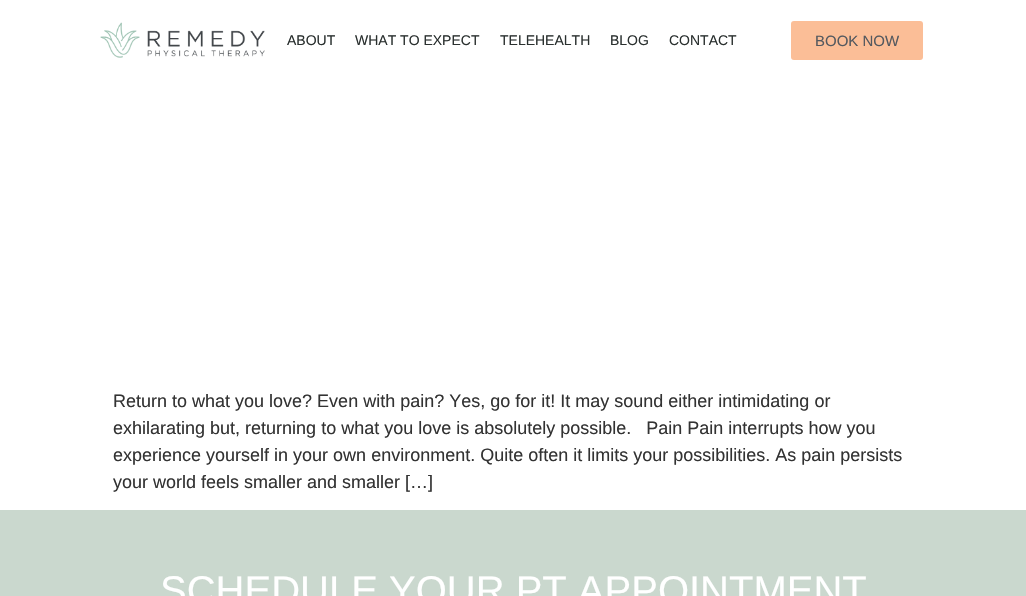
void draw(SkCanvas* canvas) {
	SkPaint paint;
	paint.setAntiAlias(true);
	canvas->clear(0xffffffff);
	canvas->drawImageRect(SkImages::DeferredFromEncodedData(SkData::MakeFromFileName("img1.png")), SkRect::MakeXYWH(100, 22, 165, 36), SkSamplingOptions());
	SkFont f1(fontMgr->matchFamilyStyle("Liberation Sans", SkFontStyle::Normal()), 14);
	f1.setSubpixel(true);
	paint.setColor(0xff2a302f);
	canvas->drawString("ABOUT", 287, 45, f1, paint);
	canvas->drawString("WHAT TO EXPECT", 355, 45, f1, paint);
	canvas->drawString("TELEHEALTH", 500, 45, f1, paint);
	canvas->drawString("BLOG", 610, 45, f1, paint);
	canvas->drawString("CONTACT", 669, 45, f1, paint);
	paint.setColor(0xfffbbe97);
	canvas->drawRoundRect(SkRect::MakeXYWH(791, 21, 132, 39), 3, 3, paint);
	SkFont f2(fontMgr->matchFamilyStyle("Liberation Sans", SkFontStyle::Normal()), 15);
	f2.setSubpixel(true);
	paint.setColor(0xff54595f);
	canvas->drawString("BOOK NOW", 815, 46, f2, paint);
	SkFont f3(fontMgr->matchFamilyStyle("Liberation Sans", SkFontStyle::Normal()), 18);
	f3.setSubpixel(true);
	paint.setColor(0xff333333);
	canvas->drawString("Return to what you love? Even with pain? Yes, go for it! It may sound either intimidating or", 113, 407, f3, paint);
	canvas->drawString("exhilarating but, returning to what you love is absolutely possible.   Pain Pain interrupts how you", 113, 434, f3, paint);
	canvas->drawString("experience yourself in your own environment. Quite often it limits your possibilities. As pain persists", 113, 461, f3, paint);
	canvas->drawString("your world feels smaller and smaller […]", 113, 488, f3, paint);
	paint.setColor(0xffcad8ce);
	canvas->drawRect(SkRect::MakeXYWH(0, 510, 1026, 86), paint);
	SkFont f4(fontMgr->matchFamilyStyle("Liberation Sans", SkFontStyle::Normal()), 40);
	f4.setSubpixel(true);
	paint.setColor(0xffffffff);
	canvas->drawString("SCHEDULE YOUR PT APPOINTMENT", 160, 604, f4, paint);
}
